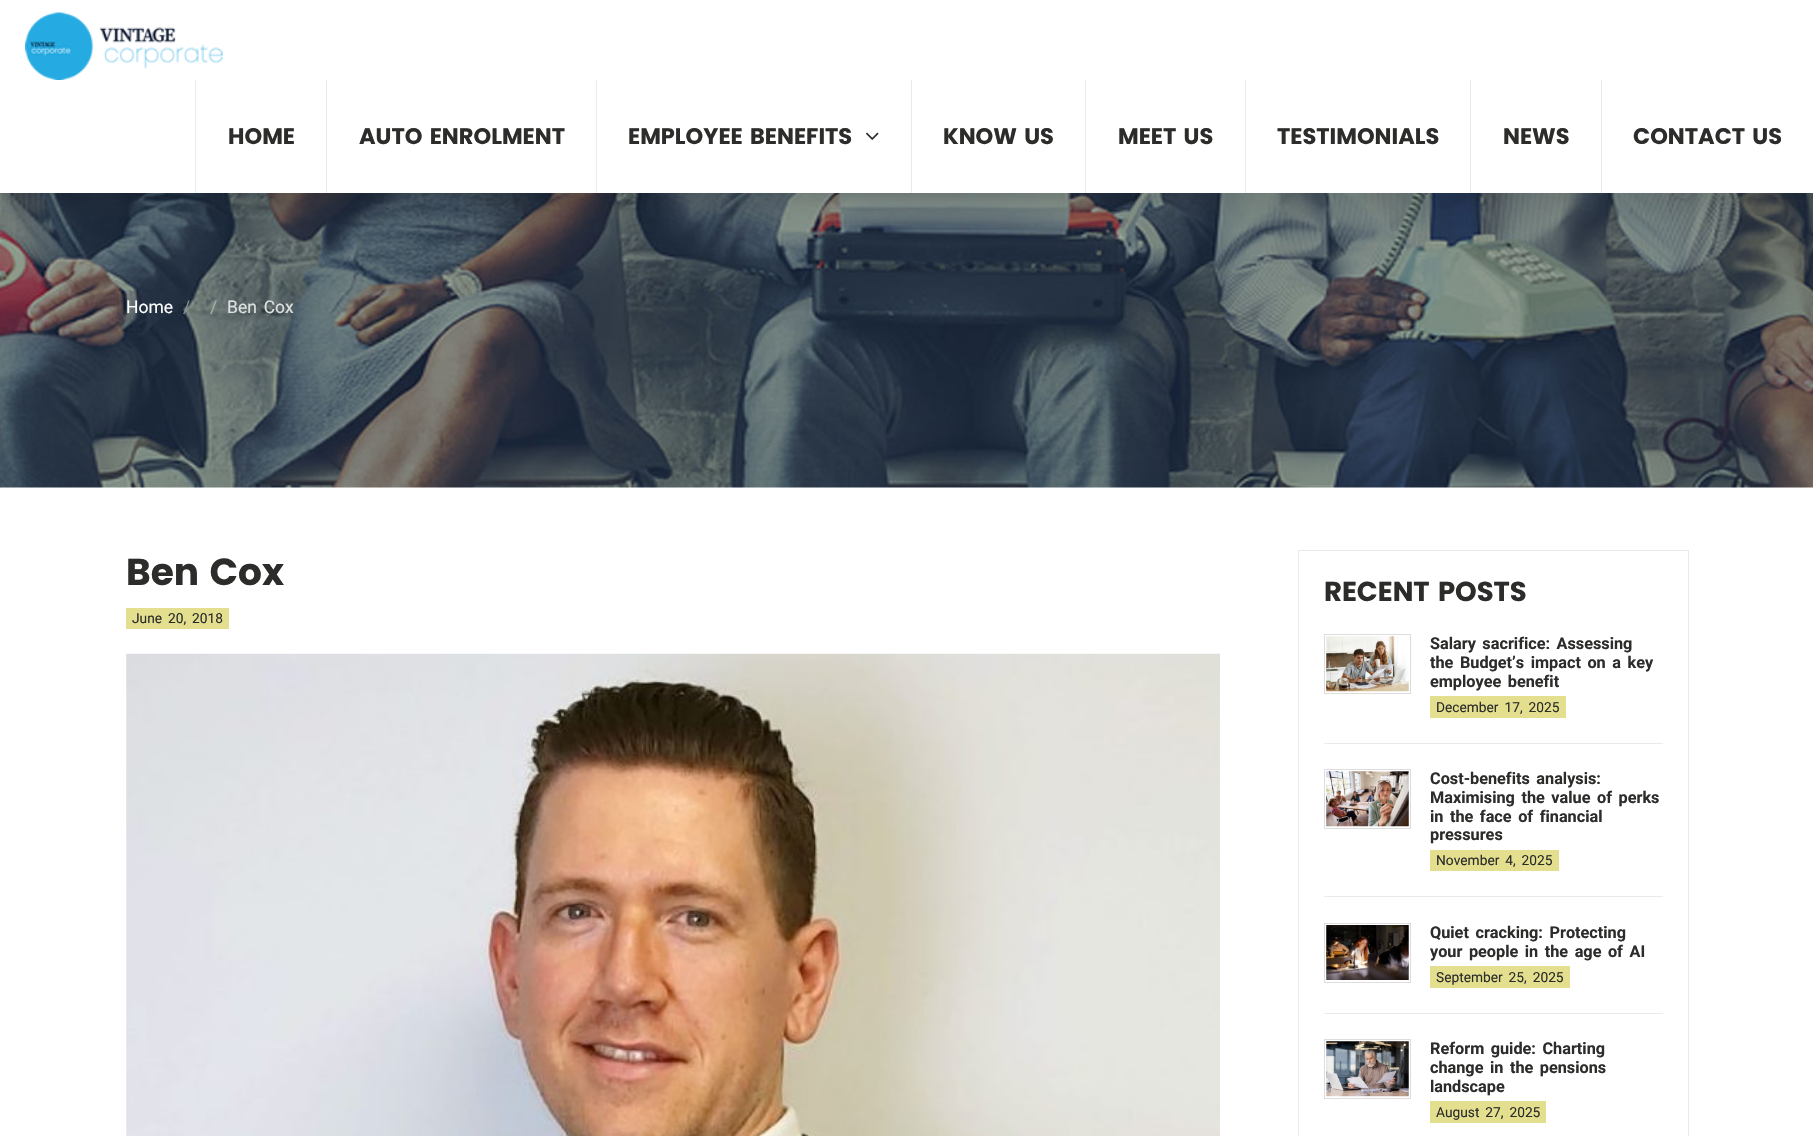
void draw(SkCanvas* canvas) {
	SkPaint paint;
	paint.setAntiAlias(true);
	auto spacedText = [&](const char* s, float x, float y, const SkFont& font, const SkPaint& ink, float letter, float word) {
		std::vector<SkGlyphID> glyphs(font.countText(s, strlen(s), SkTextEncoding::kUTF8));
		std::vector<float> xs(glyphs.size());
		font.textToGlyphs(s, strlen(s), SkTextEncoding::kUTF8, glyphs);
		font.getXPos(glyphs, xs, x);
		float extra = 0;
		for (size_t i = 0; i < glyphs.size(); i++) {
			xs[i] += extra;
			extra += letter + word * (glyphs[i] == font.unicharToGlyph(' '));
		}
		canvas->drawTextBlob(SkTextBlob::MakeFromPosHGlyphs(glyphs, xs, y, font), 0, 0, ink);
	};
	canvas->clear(0xffffffff);
	canvas->drawImageRect(SkImages::DeferredFromEncodedData(SkData::MakeFromFileName("img3.png")), SkRect::MakeXYWH(0, 193, 1813, 295), SkSamplingOptions());
	paint.setColor(0x33000000);
	paint.setMaskFilter(SkMaskFilter::MakeBlur(kNormal_SkBlurStyle, 19));
	canvas->drawRect(SkRect::MakeXYWH(0, 0, 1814, 193), paint);
	paint.setMaskFilter(nullptr);
	paint.setColor(0xffffffff);
	canvas->drawRect(SkRect::MakeXYWH(0, 0, 1813, 193), paint);
	canvas->drawImageRect(SkImages::DeferredFromEncodedData(SkData::MakeFromFileName("img1.png")), SkRect::MakeXYWH(25, 12, 198, 68), SkSamplingOptions());
	paint.setColor(0xffeaeaea);
	canvas->drawRect(SkRect::MakeXYWH(195, 80, 1, 113), paint);
	SkFont f1(fontMgr->matchFamilyStyle("Poppins", SkFontStyle::Bold()), 22.5);
	f1.setSubpixel(true);
	paint.setColor(0xff2c2c2b);
	canvas->drawString("HOME", 228, 144, f1, paint);
	paint.setColor(0xffeaeaea);
	canvas->drawRect(SkRect::MakeXYWH(326, 80, 1, 113), paint);
	paint.setColor(0xff2c2c2b);
	spacedText("AUTO ENROLMENT", 359, 144, f1, paint, 0, 2.5);
	paint.setColor(0xffeaeaea);
	canvas->drawRect(SkRect::MakeXYWH(596, 80, 1, 113), paint);
	paint.setColor(0xff2c2c2b);
	spacedText("EMPLOYEE BENEFITS", 628, 144, f1, paint, 0, 2.5);
	canvas->drawImageRect(SkImages::DeferredFromEncodedData(SkData::MakeFromFileName("img2.png")), SkRect::MakeXYWH(866, 132, 13, 8), SkSamplingOptions());
	paint.setColor(0xffeaeaea);
	canvas->drawRect(SkRect::MakeXYWH(911, 80, 1, 113), paint);
	paint.setColor(0xff2c2c2b);
	spacedText("KNOW US", 943, 144, f1, paint, 0, 2.5);
	paint.setColor(0xffeaeaea);
	canvas->drawRect(SkRect::MakeXYWH(1085, 80, 1, 113), paint);
	paint.setColor(0xff2c2c2b);
	spacedText("MEET US", 1118, 144, f1, paint, 0, 2.5);
	paint.setColor(0xffeaeaea);
	canvas->drawRect(SkRect::MakeXYWH(1245, 80, 1, 113), paint);
	paint.setColor(0xff2c2c2b);
	canvas->drawString("TESTIMONIALS", 1277, 144, f1, paint);
	paint.setColor(0xffeaeaea);
	canvas->drawRect(SkRect::MakeXYWH(1470, 80, 1, 113), paint);
	paint.setColor(0xff2c2c2b);
	canvas->drawString("NEWS", 1503, 144, f1, paint);
	paint.setColor(0xffeaeaea);
	canvas->drawRect(SkRect::MakeXYWH(1601, 80, 1, 113), paint);
	paint.setColor(0xff2c2c2b);
	spacedText("CONTACT US", 1633, 144, f1, paint, 0, 2.5);
	SkFont f2(fontMgr->matchFamilyStyle("Roboto", SkFontStyle::Normal()), 17.5);
	f2.setSubpixel(true);
	paint.setColor(0xffffffff);
	canvas->drawString("Home", 126, 313, f2, paint);
	paint.setColor(0xff878e94);
	canvas->drawString("/", 183, 313, f2, paint);
	paint.setColor(0xffa7aeac);
	canvas->drawString("/", 210, 313, f2, paint);
	paint.setColor(0xffdde0e0);
	spacedText("Ben Cox", 227, 313, f2, paint, 0, 2.5);
	SkFont f3(fontMgr->matchFamilyStyle("Poppins", SkFontStyle::Bold()), 37.5);
	f3.setSubpixel(true);
	paint.setColor(0xff2c2c2b);
	spacedText("Ben Cox", 126, 585, f3, paint, 0, 2.5);
	paint.setColor(0xffe3df8e);
	canvas->drawRect(SkRect::MakeXYWH(126, 608, 103, 21), paint);
	SkFont f4(fontMgr->matchFamilyStyle("Roboto", SkFontStyle::Normal()), 13.75);
	f4.setSubpixel(true);
	paint.setColor(0xff2c2c2b);
	spacedText("June 20, 2018", 132, 623, f4, paint, 0, 2.5);
	canvas->drawImageRect(SkImages::DeferredFromEncodedData(SkData::MakeFromFileName("img4.png")), SkRect::MakeXYWH(126, 653, 1094, 483), SkSamplingOptions());
	paint.setStroke(true);
	paint.setStrokeWidth(1);
	paint.setColor(0xffeaeaea);
	canvas->drawRect(SkRect::MakeXYWH(1298.5, 550.5, 390, 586), paint);
	SkFont f5(fontMgr->matchFamilyStyle("Poppins", SkFontStyle::Bold()), 27.5);
	f5.setSubpixel(true);
	paint.setStroke(false);
	paint.setColor(0xff2c2c2b);
	spacedText("RECENT POSTS", 1324, 601, f5, paint, 0, 2.5);
	paint.setStroke(true);
	paint.setColor(0xffdddddd);
	canvas->drawRect(SkRect::MakeXYWH(1324.5, 634.5, 86, 59), paint);
	canvas->drawImageRect(SkImages::DeferredFromEncodedData(SkData::MakeFromFileName("img5.png")), SkRect::MakeXYWH(1326, 636, 83, 56), SkSamplingOptions());
	SkFont f6(fontMgr->matchFamilyStyle("Roboto", SkFontStyle::Bold()), 16.25);
	f6.setSubpixel(true);
	paint.setStroke(false);
	paint.setColor(0xff2c2c2b);
	spacedText("Salary sacrifice: Assessing", 1430, 649, f6, paint, 0, 2.5);
	spacedText("the Budget’s impact on a key", 1430, 668, f6, paint, 0, 2.5);
	spacedText("employee benefit", 1430, 687, f6, paint, 0, 2.5);
	paint.setColor(0xffe3df8e);
	canvas->drawRect(SkRect::MakeXYWH(1430, 696, 136, 22), paint);
	paint.setColor(0xff2c2c2b);
	spacedText("December 17, 2025", 1436, 712, f4, paint, 0, 2.5);
	paint.setColor(0xffeaeaea);
	canvas->drawRect(SkRect::MakeXYWH(1324, 743, 339, 1), paint);
	paint.setStroke(true);
	paint.setColor(0xffdddddd);
	canvas->drawRect(SkRect::MakeXYWH(1324.5, 769.5, 86, 59), paint);
	canvas->drawImageRect(SkImages::DeferredFromEncodedData(SkData::MakeFromFileName("img6.png")), SkRect::MakeXYWH(1326, 771, 83, 56), SkSamplingOptions());
	paint.setStroke(false);
	paint.setColor(0xff2c2c2b);
	spacedText("Cost-benefits analysis:", 1430, 784, f6, paint, 0, 2.5);
	spacedText("Maximising the value of perks", 1430, 803, f6, paint, 0, 2.5);
	spacedText("in the face of financial", 1430, 822, f6, paint, 0, 2.5);
	canvas->drawString("pressures", 1430, 840, f6, paint);
	paint.setColor(0xffe3df8e);
	canvas->drawRect(SkRect::MakeXYWH(1430, 850, 129, 21), paint);
	paint.setColor(0xff2c2c2b);
	spacedText("November 4, 2025", 1436, 865, f4, paint, 0, 2.5);
	paint.setColor(0xffeaeaea);
	canvas->drawRect(SkRect::MakeXYWH(1324, 896, 339, 1), paint);
	paint.setStroke(true);
	paint.setColor(0xffdddddd);
	canvas->drawRect(SkRect::MakeXYWH(1324.5, 923.5, 86, 59), paint);
	canvas->drawImageRect(SkImages::DeferredFromEncodedData(SkData::MakeFromFileName("img7.png")), SkRect::MakeXYWH(1326, 925, 83, 55), SkSamplingOptions());
	paint.setStroke(false);
	paint.setColor(0xff2c2c2b);
	spacedText("Quiet cracking: Protecting", 1430, 938, f6, paint, 0, 2.5);
	spacedText("your people in the age of AI", 1430, 957, f6, paint, 0, 2.5);
	paint.setColor(0xffe3df8e);
	canvas->drawRect(SkRect::MakeXYWH(1430, 966, 140, 22), paint);
	paint.setColor(0xff2c2c2b);
	spacedText("September 25, 2025", 1436, 982, f4, paint, 0, 2.5);
	paint.setColor(0xffeaeaea);
	canvas->drawRect(SkRect::MakeXYWH(1324, 1013, 339, 1), paint);
	paint.setStroke(true);
	paint.setColor(0xffdddddd);
	canvas->drawRect(SkRect::MakeXYWH(1324.5, 1039.5, 86, 59), paint);
	canvas->drawImageRect(SkImages::DeferredFromEncodedData(SkData::MakeFromFileName("img8.png")), SkRect::MakeXYWH(1326, 1041, 83, 56), SkSamplingOptions());
	paint.setStroke(false);
	paint.setColor(0xff2c2c2b);
	spacedText("Reform guide: Charting", 1430, 1054, f6, paint, 0, 2.5);
	spacedText("change in the pensions", 1430, 1073, f6, paint, 0, 2.5);
	canvas->drawString("landscape", 1430, 1092, f6, paint);
	paint.setColor(0xffe3df8e);
	canvas->drawRect(SkRect::MakeXYWH(1430, 1101, 116, 22), paint);
	paint.setColor(0xff2c2c2b);
	spacedText("August 27, 2025", 1436, 1117, f4, paint, 0, 2.5);
}
